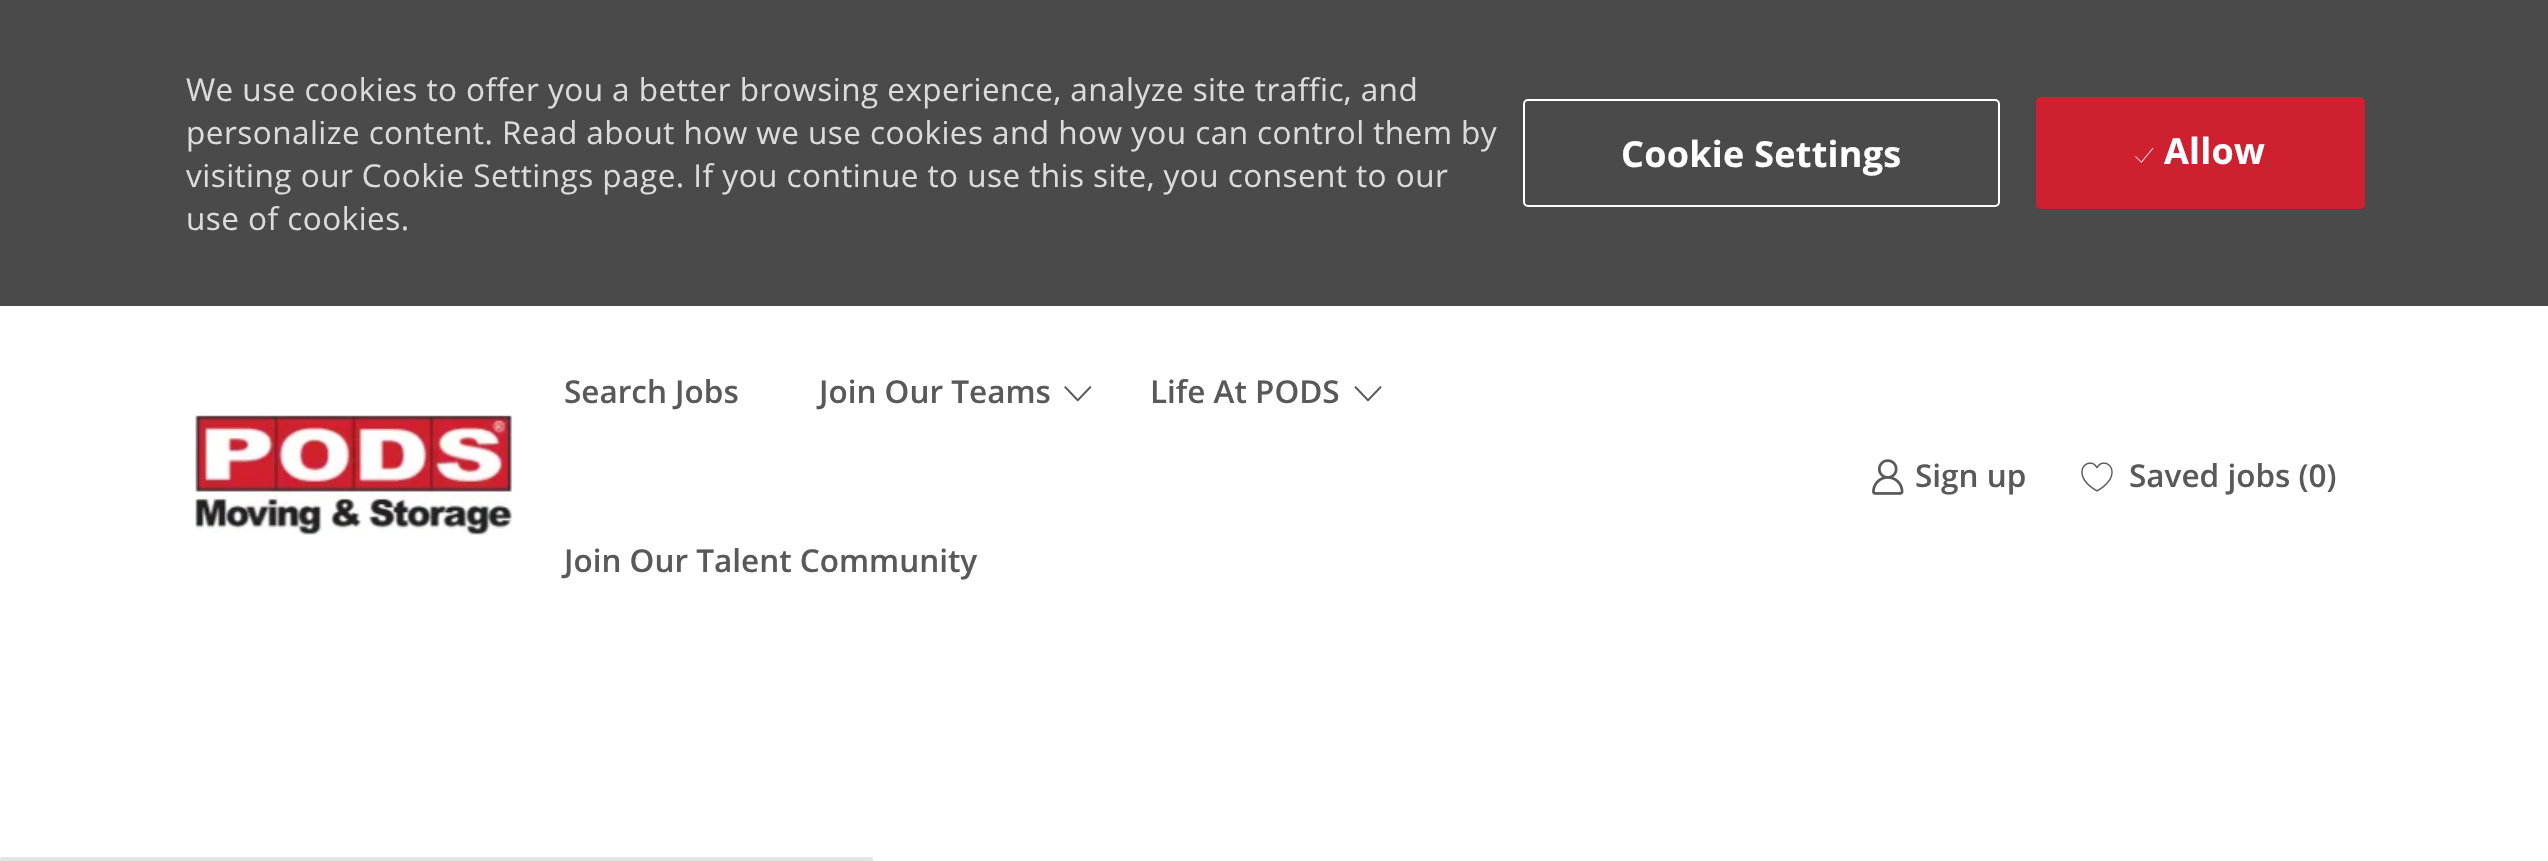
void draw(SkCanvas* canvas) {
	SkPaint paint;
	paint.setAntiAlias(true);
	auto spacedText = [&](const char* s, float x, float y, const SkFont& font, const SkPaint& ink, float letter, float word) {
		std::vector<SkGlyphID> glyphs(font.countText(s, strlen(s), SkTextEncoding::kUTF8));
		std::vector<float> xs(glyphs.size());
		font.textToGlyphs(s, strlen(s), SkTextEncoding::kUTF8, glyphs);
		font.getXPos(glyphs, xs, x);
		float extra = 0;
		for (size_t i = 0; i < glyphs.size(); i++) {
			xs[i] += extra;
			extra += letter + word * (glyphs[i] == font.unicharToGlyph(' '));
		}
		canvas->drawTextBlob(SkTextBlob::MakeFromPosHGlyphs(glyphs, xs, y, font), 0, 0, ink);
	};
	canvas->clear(0xffffffff);
	paint.setColor(0xff4a4a4a);
	canvas->drawRect(SkRect::MakeXYWH(0, 0, 2548, 306), paint);
	SkFont f1(fontMgr->matchFamilyStyle("Open Sans", SkFontStyle::Normal()), 31.5);
	f1.setSubpixel(true);
	paint.setColor(0xffdbdbdb);
	spacedText("We use cookies to offer you a better browsing experience, analyze site traffic, and", 186, 101, f1, paint, 0.45, 0);
	spacedText("personalize content. Read about how we use cookies and how you can control them by", 186, 144, f1, paint, 0.45, 0);
	spacedText("visiting our Cookie Settings page. If you continue to use this site, you consent to our", 186, 187, f1, paint, 0.45, 0);
	spacedText("use of cookies.", 186, 230, f1, paint, 0.45, 0);
	paint.setStroke(true);
	paint.setStrokeWidth(2);
	paint.setColor(0xffffffff);
	canvas->drawRoundRect(SkRect::MakeXYWH(1524, 100, 475, 106), 4, 4, paint);
	SkFont f2(fontMgr->matchFamilyStyle("Open Sans", SkFontStyle::Bold()), 36);
	f2.setSubpixel(true);
	paint.setStroke(false);
	spacedText("Cookie Settings", 1621, 167, f2, paint, 0.25, 0);
	paint.setColor(0xffce202f);
	canvas->drawRoundRect(SkRect::MakeXYWH(2037, 98, 327, 110), 4, 4, paint);
	paint.setStroke(true);
	canvas->drawRoundRect(SkRect::MakeXYWH(2037, 98, 327, 110), 4, 4, paint);
	canvas->drawImageRect(SkImages::DeferredFromEncodedData(SkData::MakeFromFileName("img1.png")), SkRect::MakeXYWH(2135, 147, 19, 16), SkSamplingOptions());
	paint.setStroke(false);
	paint.setColor(0xffffffff);
	spacedText("Allow", 2164, 164, f2, paint, 0.25, 0);
	canvas->drawImageRect(SkImages::DeferredFromEncodedData(SkData::MakeFromFileName("img2.png")), SkRect::MakeXYWH(195, 415, 318, 120), SkSamplingOptions());
	SkFont f3(fontMgr->matchFamilyStyle("Open Sans", SkFontStyle(600, SkFontStyle::kNormal_Width, SkFontStyle::kUpright_Slant)), 31.5);
	f3.setSubpixel(true);
	paint.setColor(0xff595959);
	canvas->drawString("Search Jobs", 564, 403, f3, paint);
	canvas->drawString("Join Our Teams", 819, 403, f3, paint);
	canvas->drawImageRect(SkImages::DeferredFromEncodedData(SkData::MakeFromFileName("img3.png")), SkRect::MakeXYWH(1064, 386, 28, 16), SkSamplingOptions());
	canvas->drawString("Life At PODS", 1150, 403, f3, paint);
	canvas->drawImageRect(SkImages::DeferredFromEncodedData(SkData::MakeFromFileName("img4.png")), SkRect::MakeXYWH(1354, 386, 28, 16), SkSamplingOptions());
	canvas->drawString("Join Our Talent Community", 564, 572, f3, paint);
	canvas->drawImageRect(SkImages::DeferredFromEncodedData(SkData::MakeFromFileName("img5.png")), SkRect::MakeXYWH(1872, 459, 32, 36), SkSamplingOptions());
	canvas->drawString("Sign up", 1915, 487, f3, paint);
	canvas->drawImageRect(SkImages::DeferredFromEncodedData(SkData::MakeFromFileName("img6.png")), SkRect::MakeXYWH(2081, 462, 32, 30), SkSamplingOptions());
	canvas->drawString("Saved jobs (0)", 2129, 487, f3, paint);
	paint.setColor(0xffe4e4e4);
	canvas->drawRoundRect(SkRect::MakeXYWH(0, 857, 873, 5), 2.5, 2.5, paint);
}
